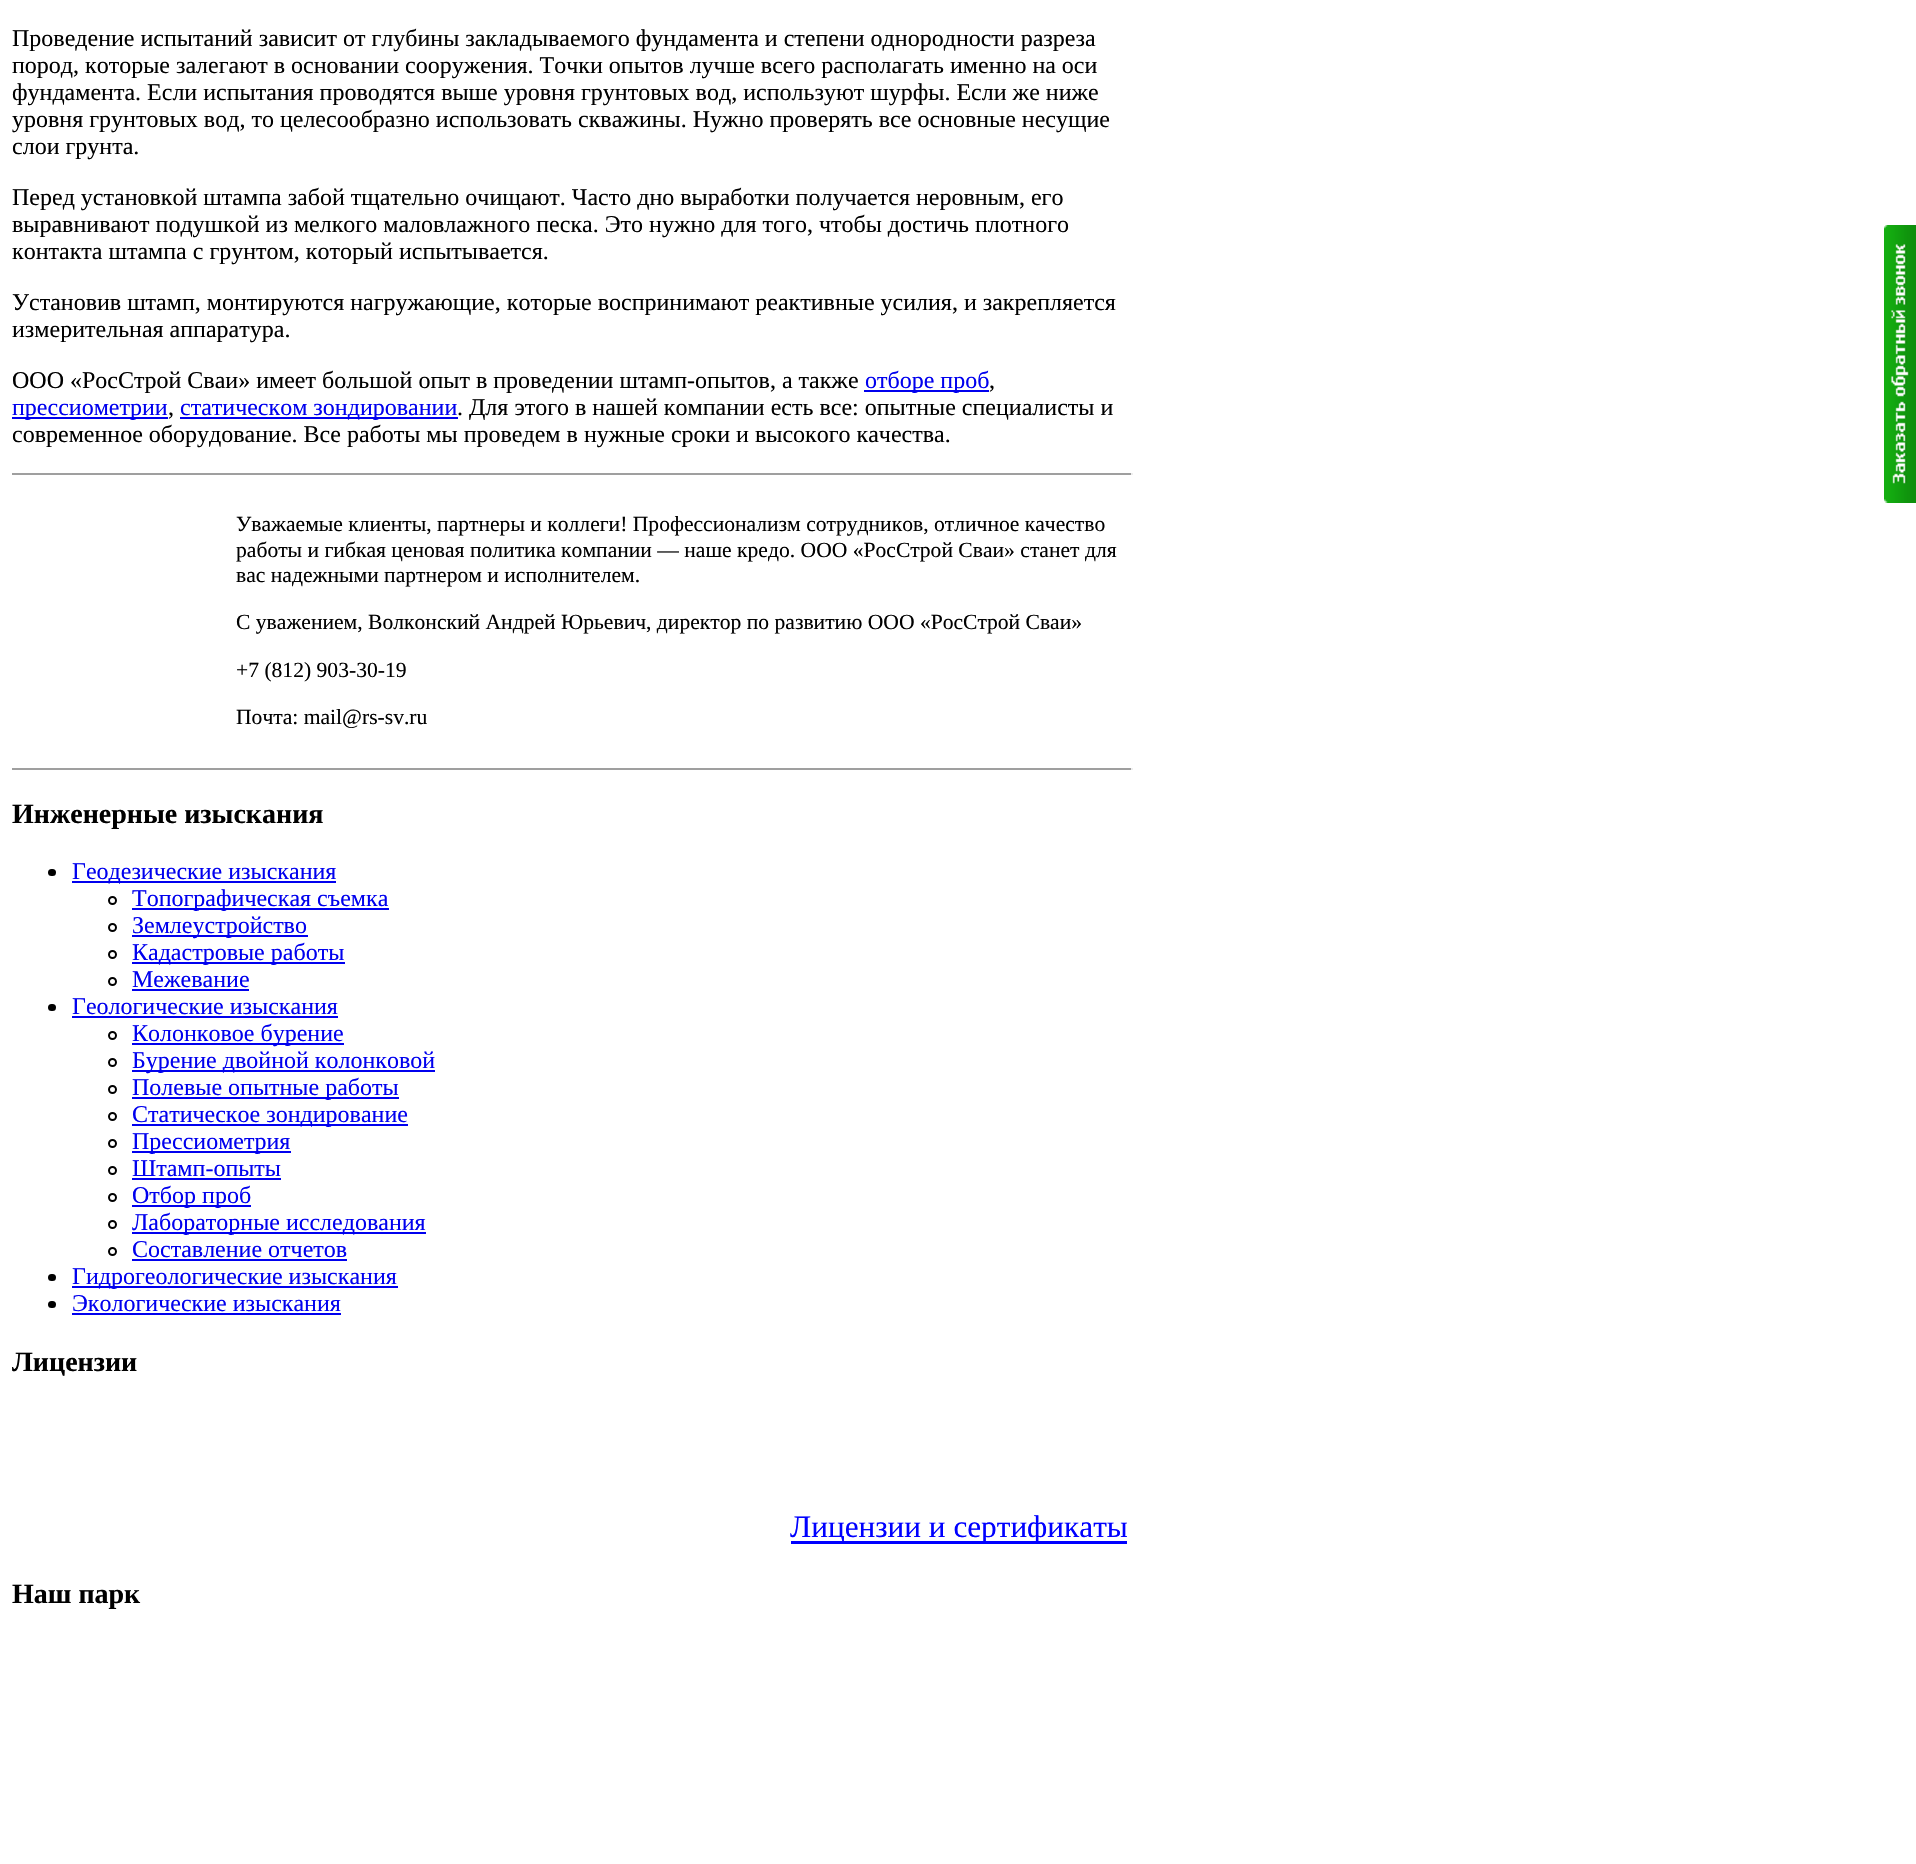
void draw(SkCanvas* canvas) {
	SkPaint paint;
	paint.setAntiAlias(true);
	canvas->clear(0xffffffff);
	SkFont f1(fontMgr->matchFamilyStyle("Liberation Serif", SkFontStyle::Normal()), 24);
	f1.setSubpixel(true);
	paint.setColor(0xff000000);
	canvas->drawString("Проведение испытаний зависит от глубины закладываемого фундамента и степени однородности разреза", 12, 46, f1, paint);
	canvas->drawString("пород, которые залегают в основании сооружения. Точки опытов лучше всего располагать именно на оси", 12, 73, f1, paint);
	canvas->drawString("фундамента. Если испытания проводятся выше уровня грунтовых вод, используют шурфы. Если же ниже", 12, 100, f1, paint);
	canvas->drawString("уровня грунтовых вод, то целесообразно использовать скважины. Нужно проверять все основные несущие", 12, 127, f1, paint);
	canvas->drawString("слои грунта.", 12, 154, f1, paint);
	canvas->drawString("Перед установкой штампа забой тщательно очищают. Часто дно выработки получается неровным, его", 12, 205, f1, paint);
	canvas->drawString("выравнивают подушкой из мелкого маловлажного песка. Это нужно для того, чтобы достичь плотного", 12, 232, f1, paint);
	canvas->drawString("контакта штампа с грунтом, который испытывается.", 12, 259, f1, paint);
	canvas->drawString("Установив штамп, монтируются нагружающие, которые воспринимают реактивные усилия, и закрепляется", 12, 310, f1, paint);
	canvas->drawString("измерительная аппаратура.", 12, 337, f1, paint);
	canvas->drawString("ООО «РосСтрой Сваи» имеет большой опыт в проведении штамп-опытов, а также", 12, 388, f1, paint);
	paint.setColor(0xff0000ee);
	canvas->drawRect(SkRect::MakeXYWH(864, 390, 125, 2), paint);
	canvas->drawString("отборе проб", 865, 388, f1, paint);
	paint.setColor(0xff000000);
	canvas->drawString(",", 989, 388, f1, paint);
	paint.setColor(0xff0000ee);
	canvas->drawRect(SkRect::MakeXYWH(12, 417, 156, 2), paint);
	canvas->drawString("прессиометрии", 12, 415, f1, paint);
	paint.setColor(0xff000000);
	canvas->drawString(",", 168, 415, f1, paint);
	paint.setColor(0xff0000ee);
	canvas->drawRect(SkRect::MakeXYWH(180, 417, 278, 2), paint);
	canvas->drawString("статическом зондировании", 180, 415, f1, paint);
	paint.setColor(0xff000000);
	canvas->drawString(". Для этого в нашей компании есть все: опытные специалисты и", 457, 415, f1, paint);
	canvas->drawString("современное оборудование. Все работы мы проведем в нужные сроки и высокого качества.", 12, 442, f1, paint);
	paint.setColor(0xff9f9f9f);
	canvas->drawRect(SkRect::MakeXYWH(12, 473, 1121, 2), paint);
	paint.setColor(0xffeeeeee);
	canvas->drawRect(SkRect::MakeXYWH(1131, 473, 2, 2), paint);
	SkFont f2(fontMgr->matchFamilyStyle("Liberation Serif", SkFontStyle::Normal()), 21.6);
	f2.setSubpixel(true);
	paint.setColor(0xff000000);
	canvas->drawString("Уважаемые клиенты, партнеры и коллеги! Профессионализм сотрудников, отличное качество", 236, 531, f2, paint);
	canvas->drawString("работы и гибкая ценовая политика компании — наше кредо. ООО «РосСтрой Сваи» станет для", 236, 557, f2, paint);
	canvas->drawString("вас надежными партнером и исполнителем.", 236, 582, f2, paint);
	canvas->drawString("С уважением, Волконский Андрей Юрьевич, директор по развитию ООО «РосСтрой Сваи»", 236, 629, f2, paint);
	canvas->drawString("+7 (812) 903-30-19", 236, 677, f2, paint);
	canvas->drawString("Почта: mail@rs-sv.ru", 236, 724, f2, paint);
	paint.setColor(0xff9f9f9f);
	canvas->drawRect(SkRect::MakeXYWH(12, 768, 1121, 2), paint);
	paint.setColor(0xffeeeeee);
	canvas->drawRect(SkRect::MakeXYWH(1131, 768, 2, 2), paint);
	SkFont f3(fontMgr->matchFamilyStyle("Liberation Serif", SkFontStyle::Bold()), 28);
	f3.setSubpixel(true);
	paint.setColor(0xff000000);
	canvas->drawString("Инженерные изыскания", 12, 823, f3, paint);
	canvas->drawRoundRect(SkRect::MakeXYWH(48, 869, 8, 7), 3.5, 3.5, paint);
	paint.setColor(0xff0000ee);
	canvas->drawRect(SkRect::MakeXYWH(72, 881, 264, 2), paint);
	canvas->drawString("Геодезические изыскания", 72, 879, f1, paint);
	paint.setStroke(true);
	paint.setStrokeWidth(2);
	paint.setColor(0xff000000);
	canvas->drawCircle(112.5, 900.5, 3.5, paint);
	paint.setStroke(false);
	paint.setColor(0xff0000ee);
	canvas->drawRect(SkRect::MakeXYWH(132, 908, 257, 2), paint);
	canvas->drawString("Топографическая съемка", 132, 906, f1, paint);
	paint.setStroke(true);
	paint.setColor(0xff000000);
	canvas->drawCircle(112.5, 927.5, 3.5, paint);
	paint.setStroke(false);
	paint.setColor(0xff0000ee);
	canvas->drawRect(SkRect::MakeXYWH(132, 935, 176, 2), paint);
	canvas->drawString("Землеустройство", 132, 933, f1, paint);
	paint.setStroke(true);
	paint.setColor(0xff000000);
	canvas->drawCircle(112.5, 954.5, 3.5, paint);
	paint.setStroke(false);
	paint.setColor(0xff0000ee);
	canvas->drawRect(SkRect::MakeXYWH(132, 962, 213, 2), paint);
	canvas->drawString("Кадастровые работы", 132, 960, f1, paint);
	paint.setStroke(true);
	paint.setColor(0xff000000);
	canvas->drawCircle(112.5, 981.5, 3.5, paint);
	paint.setStroke(false);
	paint.setColor(0xff0000ee);
	canvas->drawString("Межевание", 132, 987, f1, paint);
	canvas->drawRect(SkRect::MakeXYWH(132, 989, 117, 2), paint);
	paint.setColor(0xff000000);
	canvas->drawRoundRect(SkRect::MakeXYWH(48, 1004, 8, 7), 3.5, 3.5, paint);
	paint.setColor(0xff0000ee);
	canvas->drawString("Геологические изыскания", 72, 1014, f1, paint);
	canvas->drawRect(SkRect::MakeXYWH(72, 1016, 266, 2), paint);
	paint.setStroke(true);
	paint.setColor(0xff000000);
	canvas->drawCircle(112.5, 1035.5, 3.5, paint);
	paint.setStroke(false);
	paint.setColor(0xff0000ee);
	canvas->drawRect(SkRect::MakeXYWH(132, 1043, 212, 2), paint);
	canvas->drawString("Колонковое бурение", 132, 1041, f1, paint);
	paint.setStroke(true);
	paint.setColor(0xff000000);
	canvas->drawCircle(112.5, 1062.5, 3.5, paint);
	paint.setStroke(false);
	paint.setColor(0xff0000ee);
	canvas->drawRect(SkRect::MakeXYWH(132, 1070, 303, 2), paint);
	canvas->drawString("Бурение двойной колонковой", 132, 1068, f1, paint);
	paint.setStroke(true);
	paint.setColor(0xff000000);
	canvas->drawCircle(112.5, 1089.5, 3.5, paint);
	paint.setStroke(false);
	paint.setColor(0xff0000ee);
	canvas->drawRect(SkRect::MakeXYWH(132, 1097, 267, 2), paint);
	canvas->drawString("Полевые опытные работы", 132, 1095, f1, paint);
	paint.setStroke(true);
	paint.setColor(0xff000000);
	canvas->drawCircle(112.5, 1116.5, 3.5, paint);
	paint.setStroke(false);
	paint.setColor(0xff0000ee);
	canvas->drawRect(SkRect::MakeXYWH(132, 1124, 276, 2), paint);
	canvas->drawString("Статическое зондирование", 132, 1122, f1, paint);
	paint.setStroke(true);
	paint.setColor(0xff000000);
	canvas->drawCircle(112.5, 1143.5, 3.5, paint);
	paint.setStroke(false);
	paint.setColor(0xff0000ee);
	canvas->drawRect(SkRect::MakeXYWH(132, 1151, 159, 2), paint);
	canvas->drawString("Прессиометрия", 132, 1149, f1, paint);
	paint.setStroke(true);
	paint.setColor(0xff000000);
	canvas->drawCircle(112.5, 1170.5, 3.5, paint);
	paint.setStroke(false);
	paint.setColor(0xff0000ee);
	canvas->drawString("Штамп-опыты", 132, 1176, f1, paint);
	canvas->drawRect(SkRect::MakeXYWH(132, 1178, 149, 2), paint);
	paint.setStroke(true);
	paint.setColor(0xff000000);
	canvas->drawCircle(112.5, 1197.5, 3.5, paint);
	paint.setStroke(false);
	paint.setColor(0xff0000ee);
	canvas->drawRect(SkRect::MakeXYWH(132, 1205, 119, 2), paint);
	canvas->drawString("Отбор проб", 132, 1203, f1, paint);
	paint.setStroke(true);
	paint.setColor(0xff000000);
	canvas->drawCircle(112.5, 1224.5, 3.5, paint);
	paint.setStroke(false);
	paint.setColor(0xff0000ee);
	canvas->drawRect(SkRect::MakeXYWH(132, 1232, 294, 2), paint);
	canvas->drawString("Лабораторные исследования", 132, 1230, f1, paint);
	paint.setStroke(true);
	paint.setColor(0xff000000);
	canvas->drawCircle(112.5, 1251.5, 3.5, paint);
	paint.setStroke(false);
	paint.setColor(0xff0000ee);
	canvas->drawString("Составление отчетов", 132, 1257, f1, paint);
	canvas->drawRect(SkRect::MakeXYWH(132, 1259, 215, 2), paint);
	paint.setColor(0xff000000);
	canvas->drawRoundRect(SkRect::MakeXYWH(48, 1274, 8, 7), 3.5, 3.5, paint);
	paint.setColor(0xff0000ee);
	canvas->drawRect(SkRect::MakeXYWH(72, 1286, 326, 2), paint);
	canvas->drawString("Гидрогеологические изыскания", 72, 1284, f1, paint);
	paint.setColor(0xff000000);
	canvas->drawRoundRect(SkRect::MakeXYWH(48, 1301, 8, 7), 3.5, 3.5, paint);
	paint.setColor(0xff0000ee);
	canvas->drawString("Экологические изыскания", 72, 1311, f1, paint);
	canvas->drawRect(SkRect::MakeXYWH(72, 1313, 269, 2), paint);
	paint.setColor(0xff000000);
	canvas->drawString("Лицензии", 12, 1371, f3, paint);
	paint.setColor(0xff0000ff);
	canvas->drawRect(SkRect::MakeXYWH(791, 1541, 336, 3), paint);
	SkFont f4(fontMgr->matchFamilyStyle("Liberation Serif", SkFontStyle::Normal()), 31.25);
	f4.setSubpixel(true);
	canvas->drawString("Лицензии и сертификаты", 790, 1537, f4, paint);
	paint.setColor(0xff000000);
	canvas->drawString("Наш парк", 12, 1603, f3, paint);
	canvas->drawImageRect(SkImages::DeferredFromEncodedData(SkData::MakeFromFileName("img1.png")), SkRect::MakeXYWH(1884, 225, 32, 278), SkSamplingOptions());
}
